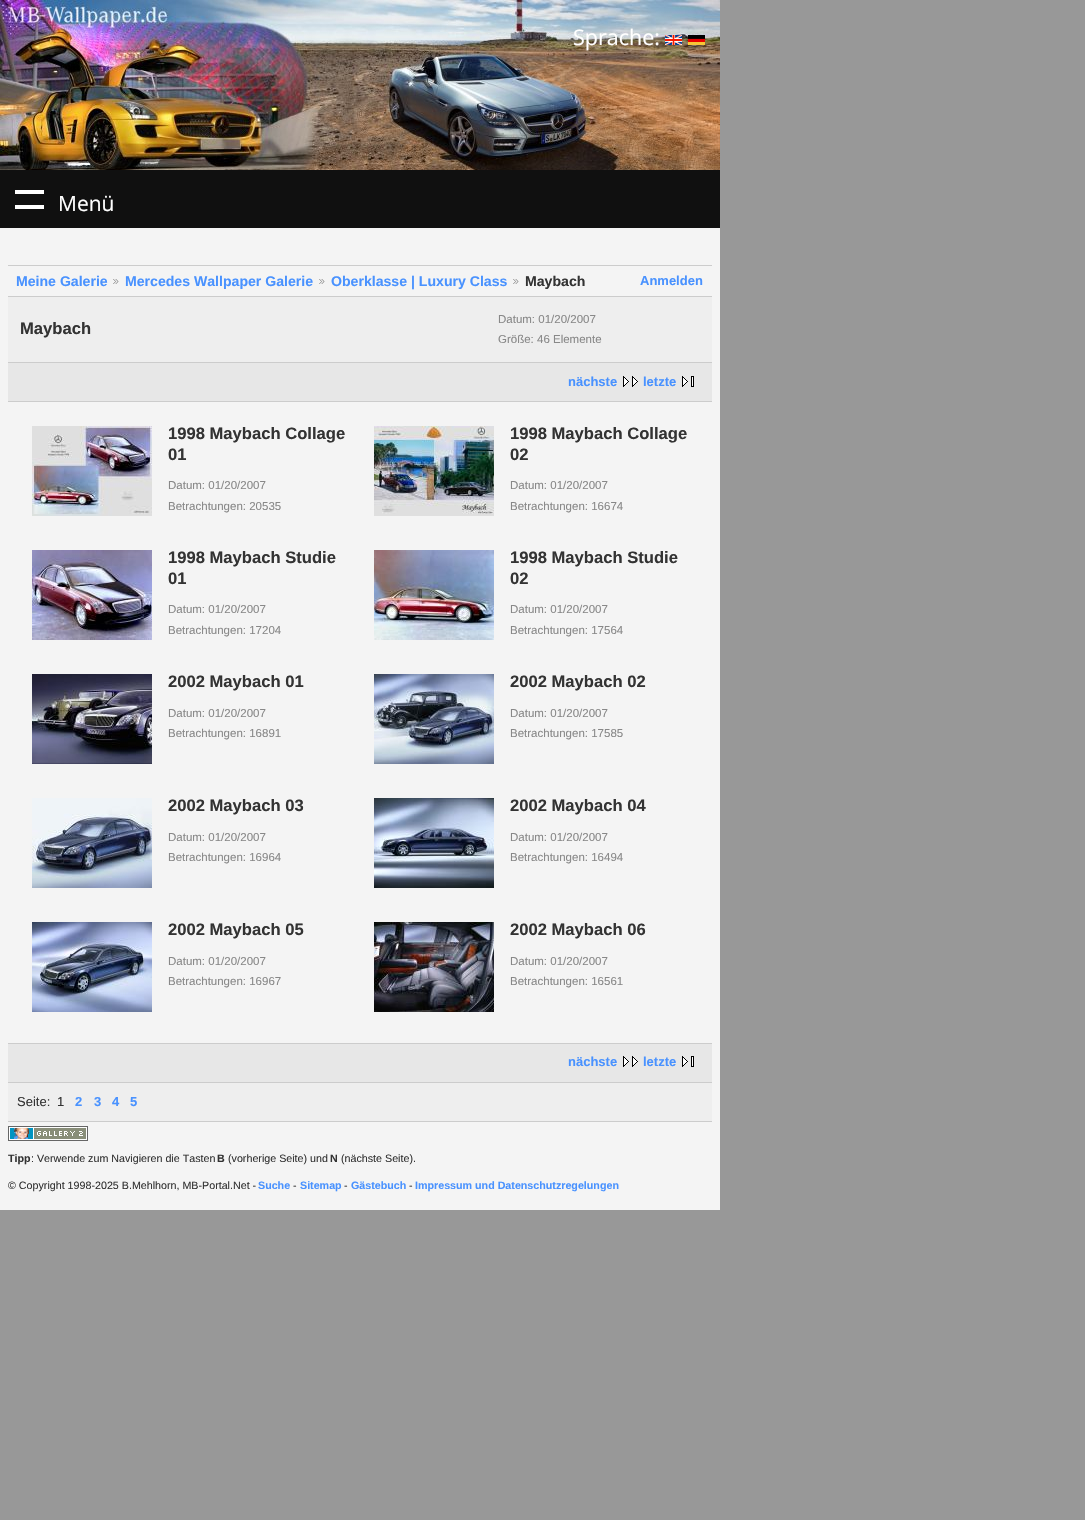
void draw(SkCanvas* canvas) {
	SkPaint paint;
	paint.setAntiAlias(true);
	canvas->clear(0xff989898);
	paint.setColor(0xfff4f4f4);
	canvas->drawRect(SkRect::MakeXYWH(0, 228, 720, 982), paint);
	canvas->drawImageRect(SkImages::DeferredFromEncodedData(SkData::MakeFromFileName("img1.png")), SkRect::MakeXYWH(0, 0, 720, 170), SkSamplingOptions());
	SkFont f1(fontMgr->matchFamilyStyle("Open Sans", SkFontStyle::Normal()), 21.5);
	f1.setSubpixel(true);
	paint.setColor(0xffffffff);
	canvas->drawString("Sprache:", 573, 45, f1, paint);
	canvas->drawImageRect(SkImages::DeferredFromEncodedData(SkData::MakeFromFileName("img2.png")), SkRect::MakeXYWH(665, 35, 17, 10), SkSamplingOptions());
	canvas->drawImageRect(SkImages::DeferredFromEncodedData(SkData::MakeFromFileName("img3.png")), SkRect::MakeXYWH(688, 35, 17, 10), SkSamplingOptions());
	paint.setColor(0xff101010);
	canvas->drawRect(SkRect::MakeXYWH(0, 170, 720, 58), paint);
	paint.setColor(0xffffffff);
	canvas->drawRect(SkRect::MakeXYWH(15, 190, 29, 4), paint);
	canvas->drawRect(SkRect::MakeXYWH(15, 205, 29, 4), paint);
	SkFont f2(fontMgr->matchFamilyStyle("Open Sans", SkFontStyle::Normal()), 21);
	f2.setSubpixel(true);
	canvas->drawString("Menü", 58, 211, f2, paint);
	paint.setColor(0xffcccccc);
	canvas->drawRect(SkRect::MakeXYWH(8, 265, 704, 1), paint);
	canvas->drawRect(SkRect::MakeXYWH(8, 296, 704, 1), paint);
	SkFont f3(fontMgr->matchFamilyStyle("Liberation Sans", SkFontStyle::Bold()), 14.1);
	f3.setSubpixel(true);
	paint.setColor(0xff4992ff);
	canvas->drawString("Meine Galerie", 16, 286, f3, paint);
	canvas->drawImageRect(SkImages::DeferredFromEncodedData(SkData::MakeFromFileName("img4.png")), SkRect::MakeXYWH(113, 279, 6, 5), SkSamplingOptions());
	canvas->drawString("Mercedes Wallpaper Galerie", 125, 286, f3, paint);
	canvas->drawImageRect(SkImages::DeferredFromEncodedData(SkData::MakeFromFileName("img4.png")), SkRect::MakeXYWH(319, 279, 6, 5), SkSamplingOptions());
	canvas->drawString("Oberklasse | Luxury Class", 331, 286, f3, paint);
	canvas->drawImageRect(SkImages::DeferredFromEncodedData(SkData::MakeFromFileName("img4.png")), SkRect::MakeXYWH(513, 279, 6, 5), SkSamplingOptions());
	paint.setColor(0xff333333);
	canvas->drawString("Maybach", 525, 286, f3, paint);
	SkFont f4(fontMgr->matchFamilyStyle("Liberation Sans", SkFontStyle::Bold()), 13);
	f4.setSubpixel(true);
	paint.setColor(0xff4992ff);
	canvas->drawString("Anmelden", 640, 285, f4, paint);
	paint.setColor(0xffeeeeee);
	canvas->drawRect(SkRect::MakeXYWH(8, 297, 704, 65), paint);
	paint.setColor(0xffcccccc);
	canvas->drawRect(SkRect::MakeXYWH(8, 362, 704, 1), paint);
	SkFont f5(fontMgr->matchFamilyStyle("Liberation Sans", SkFontStyle::Bold()), 16.6);
	f5.setSubpixel(true);
	paint.setColor(0xff333333);
	canvas->drawString("Maybach", 20, 334, f5, paint);
	SkFont f6(fontMgr->matchFamilyStyle("Liberation Sans", SkFontStyle::Normal()), 11.5);
	f6.setSubpixel(true);
	paint.setColor(0xff888888);
	canvas->drawString("Datum: 01/20/2007", 498, 323, f6, paint);
	canvas->drawString("Größe: 46 Elemente", 498, 343, f6, paint);
	paint.setColor(0xffe7e7e7);
	canvas->drawRect(SkRect::MakeXYWH(8, 363, 704, 38), paint);
	paint.setColor(0xffcccccc);
	canvas->drawRect(SkRect::MakeXYWH(8, 401, 704, 1), paint);
	paint.setColor(0xff4992ff);
	canvas->drawString("nächste", 568, 386, f4, paint);
	canvas->drawImageRect(SkImages::DeferredFromEncodedData(SkData::MakeFromFileName("img5.png")), SkRect::MakeXYWH(623, 376, 15, 11), SkSamplingOptions());
	canvas->drawString("letzte", 643, 386, f4, paint);
	canvas->drawImageRect(SkImages::DeferredFromEncodedData(SkData::MakeFromFileName("img6.png")), SkRect::MakeXYWH(682, 376, 12, 11), SkSamplingOptions());
	paint.setColor(0xffcccccc);
	canvas->drawRect(SkRect::MakeXYWH(8, 1043, 704, 1), paint);
	canvas->drawImageRect(SkImages::DeferredFromEncodedData(SkData::MakeFromFileName("img7.png")), SkRect::MakeXYWH(32, 426, 120, 90), SkSamplingOptions());
	paint.setColor(0xff333333);
	canvas->drawString("1998 Maybach Collage", 168, 439, f5, paint);
	canvas->drawString("01", 168, 460, f5, paint);
	paint.setColor(0xff888888);
	canvas->drawString("Datum: 01/20/2007", 168, 489, f6, paint);
	canvas->drawString("Betrachtungen: 20535", 168, 510, f6, paint);
	canvas->drawImageRect(SkImages::DeferredFromEncodedData(SkData::MakeFromFileName("img8.png")), SkRect::MakeXYWH(374, 426, 120, 90), SkSamplingOptions());
	paint.setColor(0xff333333);
	canvas->drawString("1998 Maybach Collage", 510, 439, f5, paint);
	canvas->drawString("02", 510, 460, f5, paint);
	paint.setColor(0xff888888);
	canvas->drawString("Datum: 01/20/2007", 510, 489, f6, paint);
	canvas->drawString("Betrachtungen: 16674", 510, 510, f6, paint);
	canvas->drawImageRect(SkImages::DeferredFromEncodedData(SkData::MakeFromFileName("img9.png")), SkRect::MakeXYWH(32, 550, 120, 90), SkSamplingOptions());
	paint.setColor(0xff333333);
	canvas->drawString("1998 Maybach Studie", 168, 563, f5, paint);
	canvas->drawString("01", 168, 584, f5, paint);
	paint.setColor(0xff888888);
	canvas->drawString("Datum: 01/20/2007", 168, 613, f6, paint);
	canvas->drawString("Betrachtungen: 17204", 168, 634, f6, paint);
	canvas->drawImageRect(SkImages::DeferredFromEncodedData(SkData::MakeFromFileName("img10.png")), SkRect::MakeXYWH(374, 550, 120, 90), SkSamplingOptions());
	paint.setColor(0xff333333);
	canvas->drawString("1998 Maybach Studie", 510, 563, f5, paint);
	canvas->drawString("02", 510, 584, f5, paint);
	paint.setColor(0xff888888);
	canvas->drawString("Datum: 01/20/2007", 510, 613, f6, paint);
	canvas->drawString("Betrachtungen: 17564", 510, 634, f6, paint);
	canvas->drawImageRect(SkImages::DeferredFromEncodedData(SkData::MakeFromFileName("img11.png")), SkRect::MakeXYWH(32, 674, 120, 90), SkSamplingOptions());
	paint.setColor(0xff333333);
	canvas->drawString("2002 Maybach 01", 168, 687, f5, paint);
	paint.setColor(0xff888888);
	canvas->drawString("Datum: 01/20/2007", 168, 717, f6, paint);
	canvas->drawString("Betrachtungen: 16891", 168, 737, f6, paint);
	canvas->drawImageRect(SkImages::DeferredFromEncodedData(SkData::MakeFromFileName("img12.png")), SkRect::MakeXYWH(374, 674, 120, 90), SkSamplingOptions());
	paint.setColor(0xff333333);
	canvas->drawString("2002 Maybach 02", 510, 687, f5, paint);
	paint.setColor(0xff888888);
	canvas->drawString("Datum: 01/20/2007", 510, 717, f6, paint);
	canvas->drawString("Betrachtungen: 17585", 510, 737, f6, paint);
	canvas->drawImageRect(SkImages::DeferredFromEncodedData(SkData::MakeFromFileName("img13.png")), SkRect::MakeXYWH(32, 798, 120, 90), SkSamplingOptions());
	paint.setColor(0xff333333);
	canvas->drawString("2002 Maybach 03", 168, 811, f5, paint);
	paint.setColor(0xff888888);
	canvas->drawString("Datum: 01/20/2007", 168, 841, f6, paint);
	canvas->drawString("Betrachtungen: 16964", 168, 861, f6, paint);
	canvas->drawImageRect(SkImages::DeferredFromEncodedData(SkData::MakeFromFileName("img14.png")), SkRect::MakeXYWH(374, 798, 120, 90), SkSamplingOptions());
	paint.setColor(0xff333333);
	canvas->drawString("2002 Maybach 04", 510, 811, f5, paint);
	paint.setColor(0xff888888);
	canvas->drawString("Datum: 01/20/2007", 510, 841, f6, paint);
	canvas->drawString("Betrachtungen: 16494", 510, 861, f6, paint);
	canvas->drawImageRect(SkImages::DeferredFromEncodedData(SkData::MakeFromFileName("img15.png")), SkRect::MakeXYWH(32, 922, 120, 90), SkSamplingOptions());
	paint.setColor(0xff333333);
	canvas->drawString("2002 Maybach 05", 168, 935, f5, paint);
	paint.setColor(0xff888888);
	canvas->drawString("Datum: 01/20/2007", 168, 965, f6, paint);
	canvas->drawString("Betrachtungen: 16967", 168, 985, f6, paint);
	canvas->drawImageRect(SkImages::DeferredFromEncodedData(SkData::MakeFromFileName("img16.png")), SkRect::MakeXYWH(374, 922, 120, 90), SkSamplingOptions());
	paint.setColor(0xff333333);
	canvas->drawString("2002 Maybach 06", 510, 935, f5, paint);
	paint.setColor(0xff888888);
	canvas->drawString("Datum: 01/20/2007", 510, 965, f6, paint);
	canvas->drawString("Betrachtungen: 16561", 510, 985, f6, paint);
	paint.setColor(0xffe7e7e7);
	canvas->drawRect(SkRect::MakeXYWH(8, 1044, 704, 38), paint);
	paint.setColor(0xffcccccc);
	canvas->drawRect(SkRect::MakeXYWH(8, 1082, 704, 1), paint);
	paint.setColor(0xff4992ff);
	canvas->drawString("nächste", 568, 1066, f4, paint);
	canvas->drawImageRect(SkImages::DeferredFromEncodedData(SkData::MakeFromFileName("img5.png")), SkRect::MakeXYWH(623, 1056, 15, 11), SkSamplingOptions());
	canvas->drawString("letzte", 643, 1066, f4, paint);
	canvas->drawImageRect(SkImages::DeferredFromEncodedData(SkData::MakeFromFileName("img6.png")), SkRect::MakeXYWH(682, 1056, 12, 11), SkSamplingOptions());
	paint.setColor(0xffeeeeee);
	canvas->drawRect(SkRect::MakeXYWH(8, 1083, 704, 38), paint);
	paint.setColor(0xffcccccc);
	canvas->drawRect(SkRect::MakeXYWH(8, 1121, 704, 1), paint);
	SkFont f7(fontMgr->matchFamilyStyle("Liberation Sans", SkFontStyle::Normal()), 13);
	f7.setSubpixel(true);
	paint.setColor(0xff333333);
	canvas->drawString("Seite:", 17, 1106, f7, paint);
	canvas->drawString("1", 57, 1106, f7, paint);
	paint.setColor(0xff4992ff);
	canvas->drawString("2", 75, 1106, f4, paint);
	canvas->drawString("3", 94, 1106, f4, paint);
	canvas->drawString("4", 112, 1106, f4, paint);
	canvas->drawString("5", 130, 1106, f4, paint);
	canvas->drawImageRect(SkImages::DeferredFromEncodedData(SkData::MakeFromFileName("img17.png")), SkRect::MakeXYWH(8, 1126, 80, 15), SkSamplingOptions());
	SkFont f8(fontMgr->matchFamilyStyle("Liberation Sans", SkFontStyle::Bold()), 10.7);
	f8.setSubpixel(true);
	paint.setColor(0xff333333);
	canvas->drawString("Tipp", 8, 1162, f8, paint);
	SkFont f9(fontMgr->matchFamilyStyle("Liberation Sans", SkFontStyle::Normal()), 10.7);
	f9.setSubpixel(true);
	canvas->drawString(": Verwende zum Navigieren die Tasten", 31, 1162, f9, paint);
	canvas->drawString("B", 217, 1162, f8, paint);
	canvas->drawString("(vorherige Seite) und", 228, 1162, f9, paint);
	canvas->drawString("N", 330, 1162, f8, paint);
	canvas->drawString("(nächste Seite).", 341, 1162, f9, paint);
	canvas->drawString("© Copyright 1998-2025 B.Mehlhorn, MB-Portal.Net -", 8, 1189, f9, paint);
	paint.setColor(0xff4992ff);
	canvas->drawString("Suche", 258, 1189, f8, paint);
	paint.setColor(0xff333333);
	canvas->drawString("-", 293, 1189, f9, paint);
	paint.setColor(0xff4992ff);
	canvas->drawString("Sitemap", 300, 1189, f8, paint);
	paint.setColor(0xff333333);
	canvas->drawString("-", 344, 1189, f9, paint);
	paint.setColor(0xff4992ff);
	canvas->drawString("Gästebuch", 351, 1189, f8, paint);
	paint.setColor(0xff333333);
	canvas->drawString("-", 409, 1189, f9, paint);
	paint.setColor(0xff4992ff);
	canvas->drawString("Impressum und Datenschutzregelungen", 415, 1189, f8, paint);
}
